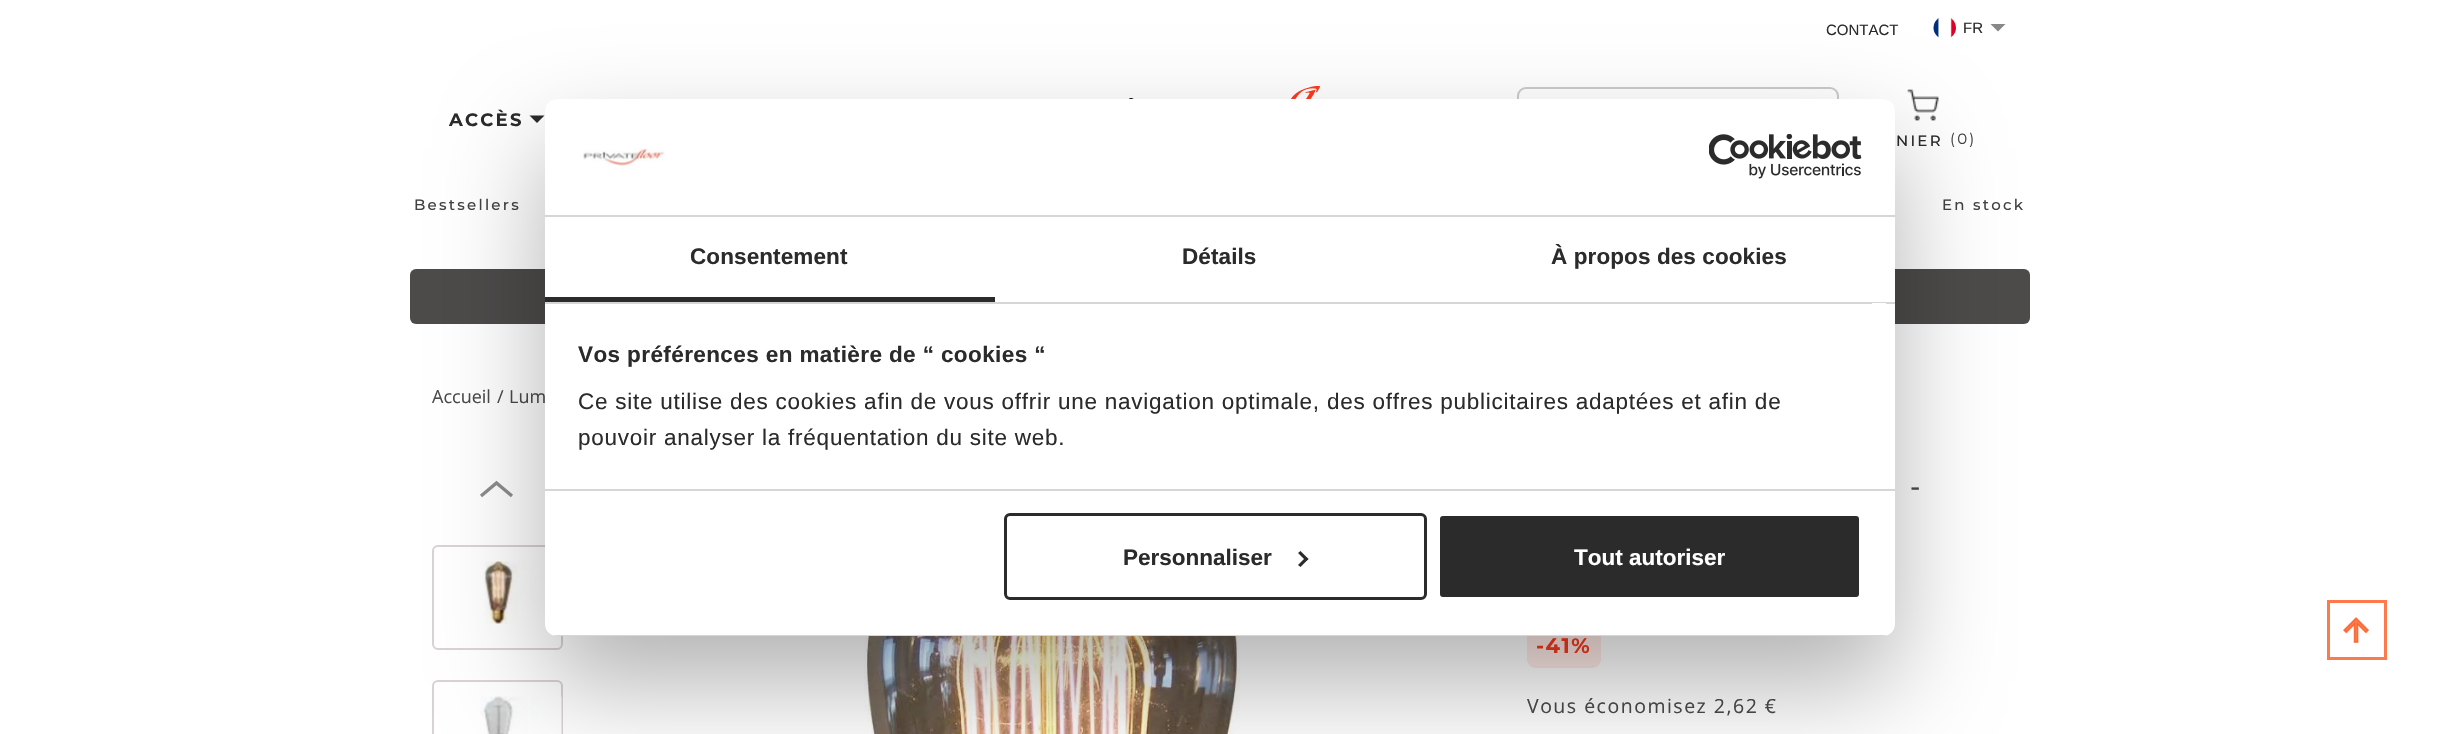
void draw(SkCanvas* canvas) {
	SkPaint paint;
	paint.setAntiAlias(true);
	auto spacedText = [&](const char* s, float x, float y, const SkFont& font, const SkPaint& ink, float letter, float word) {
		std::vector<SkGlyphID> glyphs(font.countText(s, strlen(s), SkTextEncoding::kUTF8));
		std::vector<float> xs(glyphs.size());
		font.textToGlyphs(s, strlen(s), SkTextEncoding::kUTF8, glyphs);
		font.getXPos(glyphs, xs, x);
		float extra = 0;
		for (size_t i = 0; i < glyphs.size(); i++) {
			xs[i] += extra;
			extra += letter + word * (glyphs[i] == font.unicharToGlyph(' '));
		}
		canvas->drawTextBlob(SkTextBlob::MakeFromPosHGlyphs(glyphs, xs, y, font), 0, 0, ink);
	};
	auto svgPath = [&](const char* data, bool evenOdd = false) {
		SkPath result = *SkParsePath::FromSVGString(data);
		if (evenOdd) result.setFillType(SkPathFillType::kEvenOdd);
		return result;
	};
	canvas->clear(0xffffffff);
	SkFont f1(fontMgr->matchFamilyStyle("Liberation Sans", SkFontStyle::Normal()), 15);
	f1.setSubpixel(true);
	paint.setColor(0xff2b2b2b);
	canvas->drawString("CONTACT", 1826, 35, f1, paint);
	canvas->drawImageRect(SkImages::DeferredFromEncodedData(SkData::MakeFromFileName("img1.png")), SkRect::MakeXYWH(1933, 18, 23, 20), SkSamplingOptions());
	canvas->drawString("FR", 1963, 33, f1, paint);
	paint.setColor(0xff888888);
	canvas->drawPath(svgPath("M1990.5 24H2005.5L1998 31.5Z"), paint);
	canvas->drawImageRect(SkImages::DeferredFromEncodedData(SkData::MakeFromFileName("img2.png")), SkRect::MakeXYWH(1128, 86, 192, 13), SkSamplingOptions());
	SkFont f2(fontMgr->matchFamilyStyle("Montserrat", SkFontStyle::Bold()), 18);
	f2.setSubpixel(true);
	paint.setColor(0xff2b2b2b);
	spacedText("ACCÈS", 449, 126, f2, paint, 2.25, 0);
	canvas->drawPath(svgPath("M529.5 115.5H544.5L537 123Z"), paint);
	paint.setStroke(true);
	paint.setStrokeWidth(2);
	paint.setColor(0xffcdcaca);
	canvas->drawRoundRect(SkRect::MakeXYWH(1518, 88, 320, 60), 8, 8, paint);
	canvas->drawImageRect(SkImages::DeferredFromEncodedData(SkData::MakeFromFileName("img3.png")), SkRect::MakeXYWH(1907, 89, 32, 32), SkSamplingOptions());
	SkFont f3(fontMgr->matchFamilyStyle("Montserrat", SkFontStyle(500, SkFontStyle::kNormal_Width, SkFontStyle::kUpright_Slant)), 15);
	f3.setSubpixel(true);
	paint.setStroke(false);
	paint.setColor(0xff2b2b2b);
	spacedText("NIER", 1896, 146, f3, paint, 2.25, 0);
	SkFont f4(fontMgr->matchFamilyStyle("Montserrat", SkFontStyle::Normal()), 15);
	f4.setSubpixel(true);
	paint.setColor(0xff424242);
	spacedText("(0)", 1950, 144, f4, paint, 2.25, 0);
	spacedText("Bestsellers", 414, 210, f3, paint, 2.25, 0);
	spacedText("En stock", 1942, 210, f3, paint, 2.25, 0);
	paint.setColor(0xff4d4b4a);
	canvas->drawRoundRect(SkRect::MakeXYWH(410, 269, 1620, 55), 6, 6, paint);
	SkFont f5(fontMgr->matchFamilyStyle("Open Sans", SkFontStyle::Normal()), 18);
	f5.setSubpixel(true);
	canvas->drawString("Accueil", 432, 403, f5, paint);
	canvas->drawString("/", 497, 403, f5, paint);
	canvas->drawString("Lum", 509, 403, f5, paint);
	paint.setStroke(true);
	paint.setStrokeWidth(3.4);
	paint.setColor(0xff8d8d8d);
	canvas->drawPath(svgPath("M481 496L496.5 483L512 496"), paint);
	paint.setStrokeWidth(2);
	paint.setColor(0xffd9d3d2);
	canvas->drawRoundRect(SkRect::MakeXYWH(433, 546, 129, 103), 5, 5, paint);
	canvas->drawImageRect(SkImages::DeferredFromEncodedData(SkData::MakeFromFileName("img4.png")), SkRect::MakeXYWH(483, 561, 62, 63), SkSamplingOptions());
	canvas->drawRoundRect(SkRect::MakeXYWH(433, 681, 129, 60), 5, 5, paint);
	canvas->drawImageRect(SkImages::DeferredFromEncodedData(SkData::MakeFromFileName("img5.png")), SkRect::MakeXYWH(480, 696, 82, 38), SkSamplingOptions());
	canvas->drawImageRect(SkImages::DeferredFromEncodedData(SkData::MakeFromFileName("img6.png")), SkRect::MakeXYWH(864, 636, 376, 98), SkSamplingOptions());
	SkFont f6(fontMgr->matchFamilyStyle("Montserrat", SkFontStyle(500, SkFontStyle::kNormal_Width, SkFontStyle::kUpright_Slant)), 27);
	f6.setSubpixel(true);
	paint.setStroke(false);
	paint.setColor(0xff4d4b4a);
	spacedText("-", 1910, 496, f6, paint, 1.5, 0);
	paint.setColor(0xffffebe8);
	canvas->drawRoundRect(SkRect::MakeXYWH(1527, 624, 74, 44), 9, 9, paint);
	SkFont f7(fontMgr->matchFamilyStyle("Montserrat", SkFontStyle::Bold()), 21);
	f7.setSubpixel(true);
	paint.setColor(0xfffd3a1d);
	spacedText("-41%", 1536, 653, f7, paint, 1.5, 0);
	SkFont f8(fontMgr->matchFamilyStyle("Open Sans", SkFontStyle::Normal()), 19.5);
	f8.setSubpixel(true);
	paint.setColor(0xff4d4b4a);
	spacedText("Vous économisez 2,62 €", 1527, 713, f8, paint, 1.5, 0);
	paint.setStroke(true);
	paint.setStrokeWidth(3);
	paint.setColor(0xfffd7a4c);
	canvas->drawRect(SkRect::MakeXYWH(2328.5, 601.5, 57, 57), paint);
	canvas->drawImageRect(SkImages::DeferredFromEncodedData(SkData::MakeFromFileName("img7.png")), SkRect::MakeXYWH(2343, 617, 26, 26), SkSamplingOptions());
	paint.setStroke(false);
	paint.setColor(0x4d000000);
	paint.setMaskFilter(SkMaskFilter::MakeBlur(kNormal_SkBlurStyle, 51));
	canvas->drawRoundRect(SkRect::MakeXYWH(545, 147, 1350, 537), 12, 12, paint);
	paint.setMaskFilter(nullptr);
	paint.setColor(0xffffffff);
	canvas->drawRoundRect(SkRect::MakeXYWH(545, 99, 1350, 537), 12, 12, paint);
	paint.setColor(0xffd6d6d6);
	canvas->drawRect(SkRect::MakeXYWH(545, 215, 1350, 2), paint);
	canvas->drawImageRect(SkImages::DeferredFromEncodedData(SkData::MakeFromFileName("img8.png")), SkRect::MakeXYWH(583, 148, 82, 18), SkSamplingOptions());
	canvas->drawImageRect(SkImages::DeferredFromEncodedData(SkData::MakeFromFileName("img9.png")), SkRect::MakeXYWH(1709, 134, 153, 45), SkSamplingOptions());
	canvas->drawRect(SkRect::MakeXYWH(545, 302, 1350, 2), paint);
	paint.setColor(0xff2b2b2b);
	canvas->drawRect(SkRect::MakeXYWH(545, 297, 450, 5), paint);
	SkFont f9(fontMgr->matchFamilyStyle("Liberation Sans", SkFontStyle::Bold()), 22.5);
	f9.setSubpixel(true);
	spacedText("Consentement", 690, 264, f9, paint, 0.1, 0);
	spacedText("Détails", 1182, 264, f9, paint, 0.1, 0);
	spacedText("À propos des cookies", 1551, 264, f9, paint, 0.1, 0);
	paint.setColor(0xffd6d6d6);
	canvas->drawRect(SkRect::MakeXYWH(545, 489, 1350, 2), paint);
	paint.setColor(0xffffffff);
	canvas->drawRect(SkRect::MakeXYWH(1872, 303, 14, 1), paint);
	paint.setColor(0xff2b2b2b);
	spacedText("Vos préférences en matière de “ cookies “", 578, 362, f9, paint, 0.4, 0);
	SkFont f10(fontMgr->matchFamilyStyle("Liberation Sans", SkFontStyle::Normal()), 22.5);
	f10.setSubpixel(true);
	spacedText("Ce site utilise des cookies afin de vous offrir une navigation optimale, des offres publicitaires adaptées et afin de", 578, 409, f10, paint, 0.75, 0);
	spacedText("pouvoir analyser la fréquentation du site web.", 578, 445, f10, paint, 0.75, 0);
	canvas->save();
	canvas->clipPath(svgPath("M557 99H1883C1889.5 99 1895 104.5 1895 111V624C1895 630.5 1889.5 636 1883 636H557C550.5 636 545 630.5 545 624V111C545 104.5 550.5 99 557 99Z"), true);
	paint.setColor(0xffd6d6d6);
	canvas->drawRect(SkRect::MakeXYWH(545, 635, 1350, 1), paint);
	canvas->restore();
	paint.setStroke(true);
	paint.setColor(0xff2b2b2b);
	canvas->drawRoundRect(SkRect::MakeXYWH(1005.5, 514.5, 420, 84), 4.5, 4.5, paint);
	paint.setStroke(false);
	canvas->drawString("Personnaliser", 1123, 565, f9, paint);
	canvas->drawPath(svgPath("M1300.5 551L1308.5 559L1306 561L1298 553Z"), paint);
	canvas->drawPath(svgPath("M1306 557L1308.5 559L1300.5 567L1298 565Z"), paint);
	canvas->drawRoundRect(SkRect::MakeXYWH(1438.5, 514.5, 422, 84), 4.5, 4.5, paint);
	paint.setStroke(true);
	paint.setColor(0xffffffff);
	canvas->drawRoundRect(SkRect::MakeXYWH(1438.5, 514.5, 422, 84), 4.5, 4.5, paint);
	paint.setStroke(false);
	canvas->drawString("Tout autoriser", 1574, 565, f9, paint);
}
